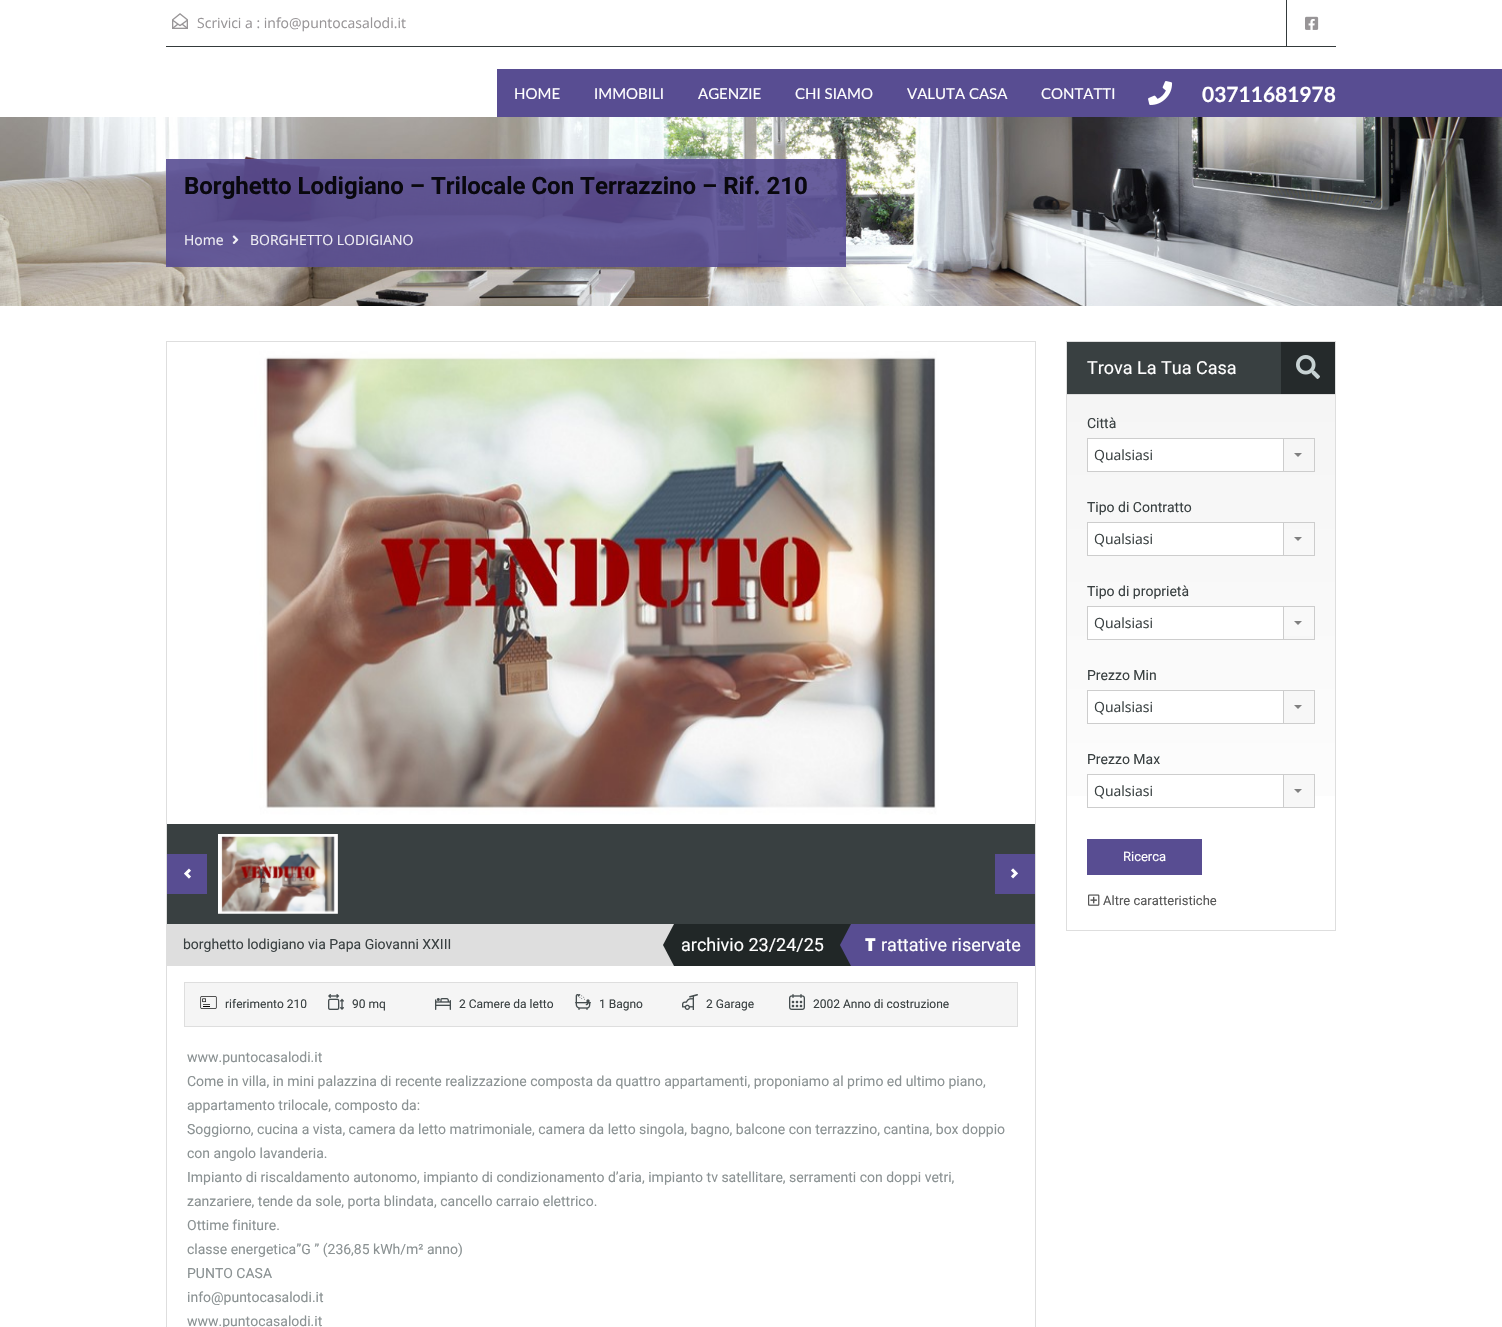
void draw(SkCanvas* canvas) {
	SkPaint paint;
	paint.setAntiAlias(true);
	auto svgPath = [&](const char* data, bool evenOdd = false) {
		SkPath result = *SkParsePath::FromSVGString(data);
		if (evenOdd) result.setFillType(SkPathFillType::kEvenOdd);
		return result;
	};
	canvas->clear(0xffffffff);
	paint.setColor(0xff343a3b);
	canvas->drawRect(SkRect::MakeXYWH(166, 46, 1170, 1), paint);
	canvas->drawImageRect(SkImages::DeferredFromEncodedData(SkData::MakeFromFileName("img1.png")), SkRect::MakeXYWH(172, 13, 16, 16), SkSamplingOptions());
	SkFont f1(fontMgr->matchFamilyStyle("Open Sans", SkFontStyle::Normal()), 14);
	f1.setSubpixel(true);
	paint.setColor(0xff989597);
	canvas->drawString("Scrivici a : info@puntocasalodi.it", 197, 28, f1, paint);
	paint.setColor(0xff343a3b);
	canvas->drawRect(SkRect::MakeXYWH(1286, 0, 1, 46), paint);
	canvas->drawImageRect(SkImages::DeferredFromEncodedData(SkData::MakeFromFileName("img2.png")), SkRect::MakeXYWH(1305, 16, 14, 14), SkSamplingOptions());
	paint.setColor(0xff584d92);
	canvas->drawRect(SkRect::MakeXYWH(497, 69, 636, 48), paint);
	SkFont f2(fontMgr->matchFamilyStyle("Lato", SkFontStyle::Normal()), 15);
	f2.setSubpixel(true);
	paint.setColor(0xffffffff);
	canvas->drawString("HOME", 514, 99, f2, paint);
	canvas->drawString("IMMOBILI", 594, 99, f2, paint);
	canvas->drawString("AGENZIE", 698, 99, f2, paint);
	canvas->drawString("CHI SIAMO", 795, 99, f2, paint);
	canvas->drawString("VALUTA CASA", 907, 99, f2, paint);
	canvas->drawString("CONTATTI", 1041, 99, f2, paint);
	paint.setColor(0xff584d92);
	canvas->drawRect(SkRect::MakeXYWH(1133, 69, 369, 48), paint);
	canvas->drawImageRect(SkImages::DeferredFromEncodedData(SkData::MakeFromFileName("img3.png")), SkRect::MakeXYWH(1148, 81, 25, 24), SkSamplingOptions());
	SkFont f3(fontMgr->matchFamilyStyle("Lato", SkFontStyle::Bold()), 21);
	f3.setSubpixel(true);
	paint.setColor(0xffffffff);
	canvas->drawString("03711681978", 1202, 102, f3, paint);
	canvas->drawImageRect(SkImages::DeferredFromEncodedData(SkData::MakeFromFileName("img4.png")), SkRect::MakeXYWH(0, 117, 1502, 189), SkSamplingOptions());
	paint.setColor(0xe6584d92);
	canvas->drawRect(SkRect::MakeXYWH(166, 159, 680, 54), paint);
	SkFont f4(fontMgr->matchFamilyStyle("Roboto", SkFontStyle::Bold()), 24);
	f4.setSubpixel(true);
	paint.setColor(0xff09080e);
	canvas->drawString("Borghetto Lodigiano – Trilocale Con Terrazzino – Rif. 210", 184, 194, f4, paint);
	paint.setColor(0xe6584d92);
	canvas->drawRect(SkRect::MakeXYWH(166, 213, 680, 54), paint);
	paint.setColor(0xffefeef4);
	canvas->drawString("Home", 184, 245, f1, paint);
	canvas->drawImageRect(SkImages::DeferredFromEncodedData(SkData::MakeFromFileName("img5.png")), SkRect::MakeXYWH(232, 235, 7, 9), SkSamplingOptions());
	canvas->drawString("BORGHETTO LODIGIANO", 250, 245, f1, paint);
	paint.setStroke(true);
	paint.setStrokeWidth(1);
	paint.setColor(0xffdedede);
	canvas->drawRect(SkRect::MakeXYWH(1066.5, 341.5, 269, 589), paint);
	paint.setStroke(false);
	paint.setColor(0xff394041);
	canvas->drawRect(SkRect::MakeXYWH(1067, 342, 214, 52), paint);
	paint.setColor(0xffdedede);
	canvas->drawRect(SkRect::MakeXYWH(1067, 394, 268, 1), paint);
	SkFont f5(fontMgr->matchFamilyStyle("Roboto", SkFontStyle::Normal()), 18);
	f5.setSubpixel(true);
	paint.setColor(0xffffffff);
	canvas->drawString("Trova La Tua Casa", 1087, 374, f5, paint);
	paint.setColor(0xff252a2b);
	canvas->drawRect(SkRect::MakeXYWH(1281, 342, 54, 52), paint);
	canvas->drawImageRect(SkImages::DeferredFromEncodedData(SkData::MakeFromFileName("img6.png")), SkRect::MakeXYWH(1296, 355, 24, 24), SkSamplingOptions());
	{
		const SkColor colors[] = {0xffffffff, 0xfff5f5f5};
		const float stops[] = {0, 1};
		const SkPoint ends[] = {{1201, 930}, {1201, 395}};
		paint.setShader(SkGradientShader::MakeLinear(ends, colors, stops, 2, SkTileMode::kClamp));
		paint.setAlpha(255);
	}
	canvas->drawRect(SkRect::MakeXYWH(1067, 395, 268, 401), paint);
	SkFont f6(fontMgr->matchFamilyStyle("Roboto", SkFontStyle::Normal()), 14);
	f6.setSubpixel(true);
	paint.setShader(nullptr);
	paint.setColor(0xff394041);
	canvas->drawString("Città", 1087, 428, f6, paint);
	paint.setColor(0xffffffff);
	canvas->drawRect(SkRect::MakeXYWH(1088, 439, 195, 32), paint);
	paint.setStroke(true);
	paint.setColor(0xffcdcdcd);
	canvas->drawRect(SkRect::MakeXYWH(1087.5, 438.5, 227, 33), paint);
	paint.setStroke(false);
	paint.setColor(0xff394041);
	canvas->drawString("Qualsiasi", 1094, 460, f1, paint);
	paint.setColor(0xffcdcdcd);
	canvas->drawRect(SkRect::MakeXYWH(1283, 439, 1, 32), paint);
	paint.setColor(0xff808080);
	canvas->drawPath(svgPath("M1294 453H1302L1298 457Z"), paint);
	paint.setColor(0xff394041);
	canvas->drawString("Tipo di Contratto", 1087, 512, f6, paint);
	paint.setColor(0xffffffff);
	canvas->drawRect(SkRect::MakeXYWH(1088, 523, 195, 32), paint);
	paint.setStroke(true);
	paint.setColor(0xffcdcdcd);
	canvas->drawRect(SkRect::MakeXYWH(1087.5, 522.5, 227, 33), paint);
	paint.setStroke(false);
	paint.setColor(0xff394041);
	canvas->drawString("Qualsiasi", 1094, 544, f1, paint);
	paint.setColor(0xffcdcdcd);
	canvas->drawRect(SkRect::MakeXYWH(1283, 523, 1, 32), paint);
	paint.setColor(0xff808080);
	canvas->drawPath(svgPath("M1294 537H1302L1298 541Z"), paint);
	paint.setColor(0xff394041);
	canvas->drawString("Tipo di proprietà", 1087, 596, f6, paint);
	paint.setColor(0xffffffff);
	canvas->drawRect(SkRect::MakeXYWH(1088, 607, 195, 32), paint);
	paint.setStroke(true);
	paint.setColor(0xffcdcdcd);
	canvas->drawRect(SkRect::MakeXYWH(1087.5, 606.5, 227, 33), paint);
	paint.setStroke(false);
	paint.setColor(0xff394041);
	canvas->drawString("Qualsiasi", 1094, 628, f1, paint);
	paint.setColor(0xfff7f7f7);
	canvas->drawRect(SkRect::MakeXYWH(1284, 636, 30, 3), paint);
	paint.setColor(0xffcdcdcd);
	canvas->drawRect(SkRect::MakeXYWH(1283, 607, 1, 32), paint);
	paint.setColor(0xff808080);
	canvas->drawPath(svgPath("M1294 621H1302L1298 625Z"), paint);
	paint.setColor(0xff394041);
	canvas->drawString("Prezzo Min", 1087, 680, f6, paint);
	paint.setColor(0xffffffff);
	canvas->drawRect(SkRect::MakeXYWH(1088, 691, 195, 32), paint);
	paint.setStroke(true);
	paint.setColor(0xffcdcdcd);
	canvas->drawRect(SkRect::MakeXYWH(1087.5, 690.5, 227, 33), paint);
	paint.setStroke(false);
	paint.setColor(0xff394041);
	canvas->drawString("Qualsiasi", 1094, 712, f1, paint);
	paint.setColor(0xfff7f7f7);
	canvas->drawRect(SkRect::MakeXYWH(1284, 691, 30, 32), paint);
	paint.setColor(0xffcdcdcd);
	canvas->drawRect(SkRect::MakeXYWH(1283, 691, 1, 32), paint);
	paint.setColor(0xff808080);
	canvas->drawPath(svgPath("M1294 705H1302L1298 709Z"), paint);
	paint.setColor(0xff394041);
	canvas->drawString("Prezzo Max", 1087, 764, f6, paint);
	paint.setColor(0xffffffff);
	canvas->drawRect(SkRect::MakeXYWH(1088, 775, 195, 21), paint);
	paint.setStroke(true);
	paint.setColor(0xffcdcdcd);
	canvas->drawRect(SkRect::MakeXYWH(1087.5, 774.5, 227, 33), paint);
	paint.setStroke(false);
	paint.setColor(0xff394041);
	canvas->drawString("Qualsiasi", 1094, 796, f1, paint);
	paint.setColor(0xfff7f7f7);
	canvas->drawRect(SkRect::MakeXYWH(1284, 775, 30, 32), paint);
	paint.setColor(0xffcdcdcd);
	canvas->drawRect(SkRect::MakeXYWH(1283, 775, 1, 32), paint);
	paint.setColor(0xff808080);
	canvas->drawPath(svgPath("M1294 789H1302L1298 793Z"), paint);
	paint.setColor(0xff584d92);
	canvas->drawRect(SkRect::MakeXYWH(1087, 839, 115, 36), paint);
	SkFont f7(fontMgr->matchFamilyStyle("Roboto", SkFontStyle::Normal()), 13);
	f7.setSubpixel(true);
	paint.setColor(0xffffffff);
	canvas->drawString("Ricerca", 1123, 861, f7, paint);
	canvas->drawImageRect(SkImages::DeferredFromEncodedData(SkData::MakeFromFileName("img7.png")), SkRect::MakeXYWH(1088, 894, 12, 12), SkSamplingOptions());
	paint.setColor(0xff555555);
	canvas->drawString("Altre caratteristiche", 1103, 905, f7, paint);
	paint.setColor(0xffdedede);
	canvas->drawRect(SkRect::MakeXYWH(1035, 341, 1, 986), paint);
	canvas->drawRect(SkRect::MakeXYWH(166, 341, 1, 986), paint);
	canvas->drawRect(SkRect::MakeXYWH(167, 341, 868, 1), paint);
	canvas->drawImageRect(SkImages::DeferredFromEncodedData(SkData::MakeFromFileName("img8.png")), SkRect::MakeXYWH(167, 342, 868, 482), SkSamplingOptions());
	paint.setColor(0xff394041);
	canvas->drawRect(SkRect::MakeXYWH(167, 824, 868, 100), paint);
	canvas->drawImageRect(SkImages::DeferredFromEncodedData(SkData::MakeFromFileName("img9.png")), SkRect::MakeXYWH(218, 834, 120, 80), SkSamplingOptions());
	paint.setColor(0xff584d92);
	canvas->drawRect(SkRect::MakeXYWH(167, 854, 40, 40), paint);
	canvas->drawImageRect(SkImages::DeferredFromEncodedData(SkData::MakeFromFileName("img10.png")), SkRect::MakeXYWH(184, 868, 7, 11), SkSamplingOptions());
	canvas->drawRect(SkRect::MakeXYWH(995, 854, 40, 40), paint);
	canvas->drawImageRect(SkImages::DeferredFromEncodedData(SkData::MakeFromFileName("img11.png")), SkRect::MakeXYWH(1011, 868, 7, 11), SkSamplingOptions());
	paint.setColor(0xffdedede);
	canvas->drawRect(SkRect::MakeXYWH(167, 924, 507, 42), paint);
	paint.setColor(0xff394041);
	canvas->drawString("borghetto lodigiano via Papa Giovanni XXIII", 183, 949, f6, paint);
	paint.setColor(0xff212727);
	canvas->drawRect(SkRect::MakeXYWH(674, 924, 177, 42), paint);
	canvas->drawPath(svgPath("M663 945L674 924V966Z"), paint);
	paint.setColor(0xffffffff);
	canvas->drawString("archivio 23/24/25", 681, 951, f5, paint);
	paint.setColor(0xff584d92);
	canvas->drawRect(SkRect::MakeXYWH(851, 924, 184, 42), paint);
	canvas->drawPath(svgPath("M840 945L851 924V966Z"), paint);
	SkFont f8(fontMgr->matchFamilyStyle("Noto Sans", SkFontStyle(900, SkFontStyle::kNormal_Width, SkFontStyle::kUpright_Slant)), 18);
	f8.setSubpixel(true);
	paint.setColor(0xffffffff);
	canvas->drawString("T", 865, 951, f8, paint);
	canvas->drawString("rattative riservate", 881, 951, f5, paint);
	paint.setColor(0xfff5f5f5);
	canvas->drawRect(SkRect::MakeXYWH(184.5, 982.5, 833, 44), paint);
	paint.setStroke(true);
	paint.setColor(0xffdedede);
	canvas->drawRect(SkRect::MakeXYWH(184.5, 982.5, 833, 44), paint);
	canvas->drawImageRect(SkImages::DeferredFromEncodedData(SkData::MakeFromFileName("img12.png")), SkRect::MakeXYWH(200, 996, 17, 13), SkSamplingOptions());
	SkFont f9(fontMgr->matchFamilyStyle("Roboto", SkFontStyle::Normal()), 12);
	f9.setSubpixel(true);
	paint.setStroke(false);
	paint.setColor(0xff394041);
	canvas->drawString("riferimento 210", 225, 1008, f9, paint);
	canvas->drawImageRect(SkImages::DeferredFromEncodedData(SkData::MakeFromFileName("img13.png")), SkRect::MakeXYWH(328, 994, 16, 16), SkSamplingOptions());
	canvas->drawString("90 mq", 352, 1008, f9, paint);
	canvas->drawImageRect(SkImages::DeferredFromEncodedData(SkData::MakeFromFileName("img14.png")), SkRect::MakeXYWH(435, 998, 16, 12), SkSamplingOptions());
	canvas->drawString("2 Camere da letto", 459, 1008, f9, paint);
	canvas->drawImageRect(SkImages::DeferredFromEncodedData(SkData::MakeFromFileName("img15.png")), SkRect::MakeXYWH(575, 994, 16, 16), SkSamplingOptions());
	canvas->drawString("1 Bagno", 599, 1008, f9, paint);
	canvas->drawImageRect(SkImages::DeferredFromEncodedData(SkData::MakeFromFileName("img16.png")), SkRect::MakeXYWH(682, 994, 16, 16), SkSamplingOptions());
	canvas->drawString("2 Garage", 706, 1008, f9, paint);
	canvas->drawImageRect(SkImages::DeferredFromEncodedData(SkData::MakeFromFileName("img17.png")), SkRect::MakeXYWH(789, 994, 16, 16), SkSamplingOptions());
	canvas->drawString("2002 Anno di costruzione", 813, 1008, f9, paint);
	paint.setColor(0xff8b9293);
	canvas->drawString("www.puntocasalodi.it", 187, 1062, f6, paint);
	canvas->drawString("Come in villa, in mini palazzina di recente realizzazione composta da quattro appartamenti, proponiamo al primo ed ultimo piano,", 187, 1086, f6, paint);
	canvas->drawString("appartamento trilocale, composto da:", 187, 1110, f6, paint);
	canvas->drawString("Soggiorno, cucina a vista, camera da letto matrimoniale, camera da letto singola, bagno, balcone con terrazzino, cantina, box doppio", 187, 1134, f6, paint);
	canvas->drawString("con angolo lavanderia.", 187, 1158, f6, paint);
	canvas->drawString("Impianto di riscaldamento autonomo, impianto di condizionamento d’aria, impianto tv satellitare, serramenti con doppi vetri,", 187, 1182, f6, paint);
	canvas->drawString("zanzariere, tende da sole, porta blindata, cancello carraio elettrico.", 187, 1206, f6, paint);
	canvas->drawString("Ottime finiture.", 187, 1230, f6, paint);
	canvas->drawString("classe energetica”G ” (236,85 kWh/m² anno)", 187, 1254, f6, paint);
	canvas->drawString("PUNTO CASA", 187, 1278, f6, paint);
	canvas->drawString("info@puntocasalodi.it", 187, 1302, f6, paint);
	canvas->drawString("www.puntocasalodi.it", 187, 1326, f6, paint);
}
